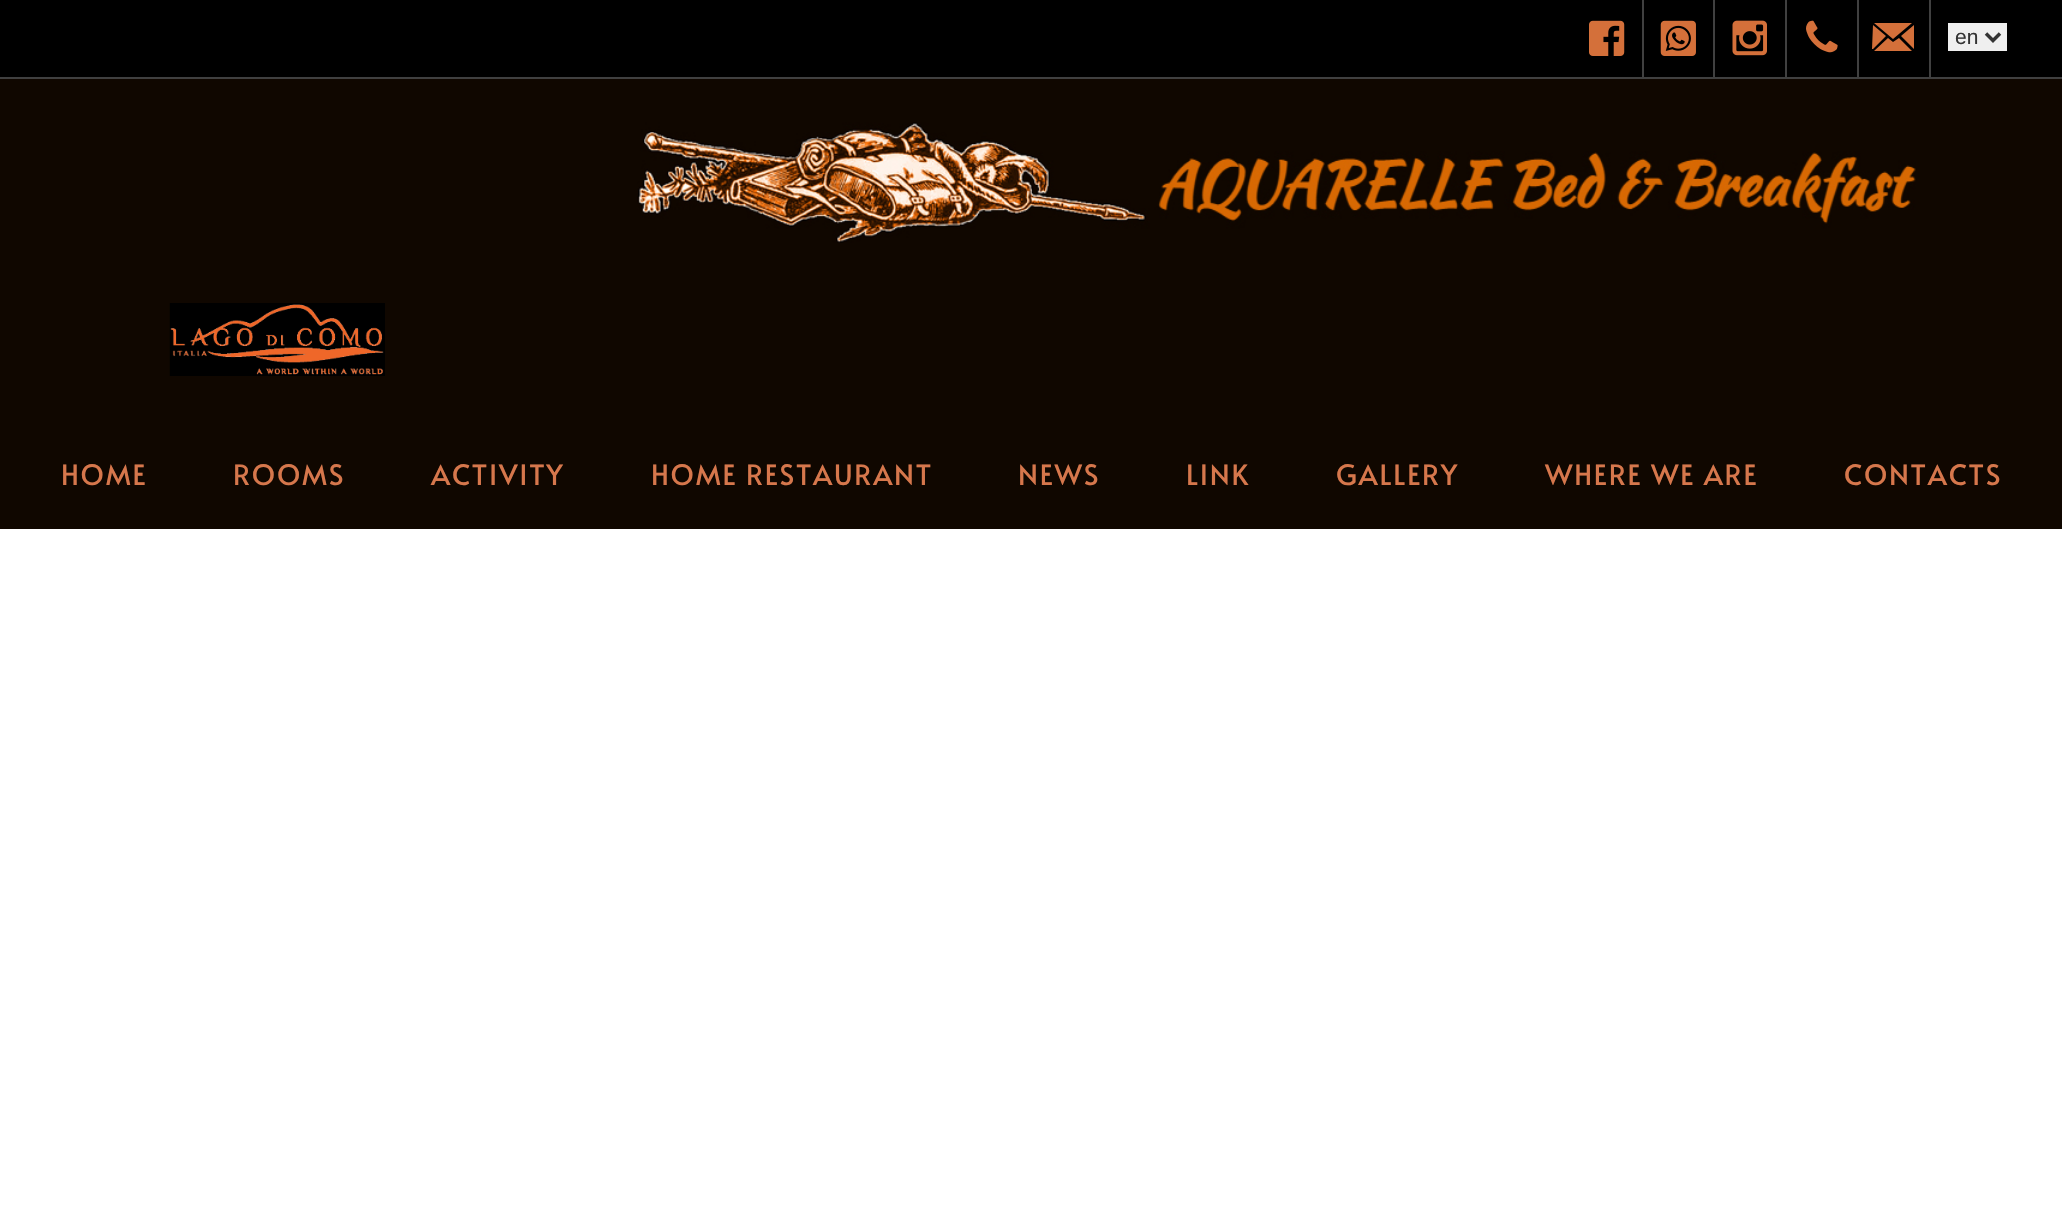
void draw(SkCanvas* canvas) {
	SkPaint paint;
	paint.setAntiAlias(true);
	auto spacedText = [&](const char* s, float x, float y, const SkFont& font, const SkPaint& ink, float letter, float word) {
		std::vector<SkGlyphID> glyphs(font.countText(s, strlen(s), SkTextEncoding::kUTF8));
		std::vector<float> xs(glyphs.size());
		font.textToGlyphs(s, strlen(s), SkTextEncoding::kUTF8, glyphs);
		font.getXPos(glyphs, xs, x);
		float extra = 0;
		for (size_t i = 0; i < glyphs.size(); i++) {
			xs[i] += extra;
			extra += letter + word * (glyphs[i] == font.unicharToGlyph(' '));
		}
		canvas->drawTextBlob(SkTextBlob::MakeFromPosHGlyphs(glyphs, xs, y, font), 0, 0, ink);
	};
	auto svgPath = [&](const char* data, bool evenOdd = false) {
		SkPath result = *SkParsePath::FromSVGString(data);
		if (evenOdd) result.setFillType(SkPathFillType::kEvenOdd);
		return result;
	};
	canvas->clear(0xffffffff);
	paint.setColor(0xff000000);
	canvas->drawRect(SkRect::MakeXYWH(0, 0, 2062, 77), paint);
	paint.setColor(0xff404040);
	canvas->drawRect(SkRect::MakeXYWH(0, 77, 2062, 2), paint);
	canvas->drawImageRect(SkImages::DeferredFromEncodedData(SkData::MakeFromFileName("img1.png")), SkRect::MakeXYWH(1589, 20, 36, 36), SkSamplingOptions());
	canvas->drawRect(SkRect::MakeXYWH(1642, 0, 2, 77), paint);
	canvas->drawImageRect(SkImages::DeferredFromEncodedData(SkData::MakeFromFileName("img2.png")), SkRect::MakeXYWH(1660, 20, 36, 36), SkSamplingOptions());
	canvas->drawRect(SkRect::MakeXYWH(1713, 0, 2, 77), paint);
	canvas->drawImageRect(SkImages::DeferredFromEncodedData(SkData::MakeFromFileName("img3.png")), SkRect::MakeXYWH(1732, 20, 35, 36), SkSamplingOptions());
	canvas->drawRect(SkRect::MakeXYWH(1785, 0, 2, 77), paint);
	canvas->drawImageRect(SkImages::DeferredFromEncodedData(SkData::MakeFromFileName("img4.png")), SkRect::MakeXYWH(1806, 20, 32, 33), SkSamplingOptions());
	canvas->drawRect(SkRect::MakeXYWH(1857, 0, 2, 77), paint);
	paint.setColor(0xffd4703a);
	canvas->drawPath(svgPath("M1872 49L1873 25L1886 36L1873 49ZM1874 23H1912L1893 39ZM1874 51L1888 38L1893 42L1899 38L1912 51ZM1901 36L1914 25V49Z"), paint);
	paint.setColor(0xff404040);
	canvas->drawRect(SkRect::MakeXYWH(1929, 0, 2, 77), paint);
	paint.setColor(0xffefefef);
	canvas->drawRect(SkRect::MakeXYWH(1948, 23, 59, 28), paint);
	paint.setStroke(true);
	paint.setStrokeWidth(3.5);
	paint.setColor(0xff333333);
	canvas->drawPath(svgPath("M1986 33.5L1993 40.5L2000 33.5"), paint);
	SkFont f1(fontMgr->matchFamilyStyle("Liberation Sans", SkFontStyle::Normal()), 21);
	f1.setSubpixel(true);
	paint.setStroke(false);
	canvas->drawString("en", 1955, 44, f1, paint);
	paint.setColor(0xff100700);
	canvas->drawRect(SkRect::MakeXYWH(0, 79, 2062, 450), paint);
	canvas->drawImageRect(SkImages::DeferredFromEncodedData(SkData::MakeFromFileName("img5.png")), SkRect::MakeXYWH(637, 122, 1279, 121), SkSamplingOptions());
	canvas->drawImageRect(SkImages::DeferredFromEncodedData(SkData::MakeFromFileName("img6.png")), SkRect::MakeXYWH(169, 303, 216, 73), SkSamplingOptions());
	SkFont f2(fontMgr->matchFamilyStyle("Alata", SkFontStyle::Normal()), 28);
	f2.setSubpixel(true);
	paint.setColor(0xffd6774c);
	spacedText("HOME", 61, 485, f2, paint, 1.75, 0);
	spacedText("ROOMS", 233, 485, f2, paint, 1.75, 0);
	spacedText("ACTIVITY", 431, 485, f2, paint, 1.75, 0);
	spacedText("HOME RESTAURANT", 651, 485, f2, paint, 1.75, 0);
	spacedText("NEWS", 1018, 485, f2, paint, 1.75, 0);
	spacedText("LINK", 1186, 485, f2, paint, 1.75, 0);
	spacedText("GALLERY", 1336, 485, f2, paint, 1.75, 0);
	spacedText("WHERE WE ARE", 1545, 485, f2, paint, 1.75, 0);
	spacedText("CONTACTS", 1844, 485, f2, paint, 1.75, 0);
}
